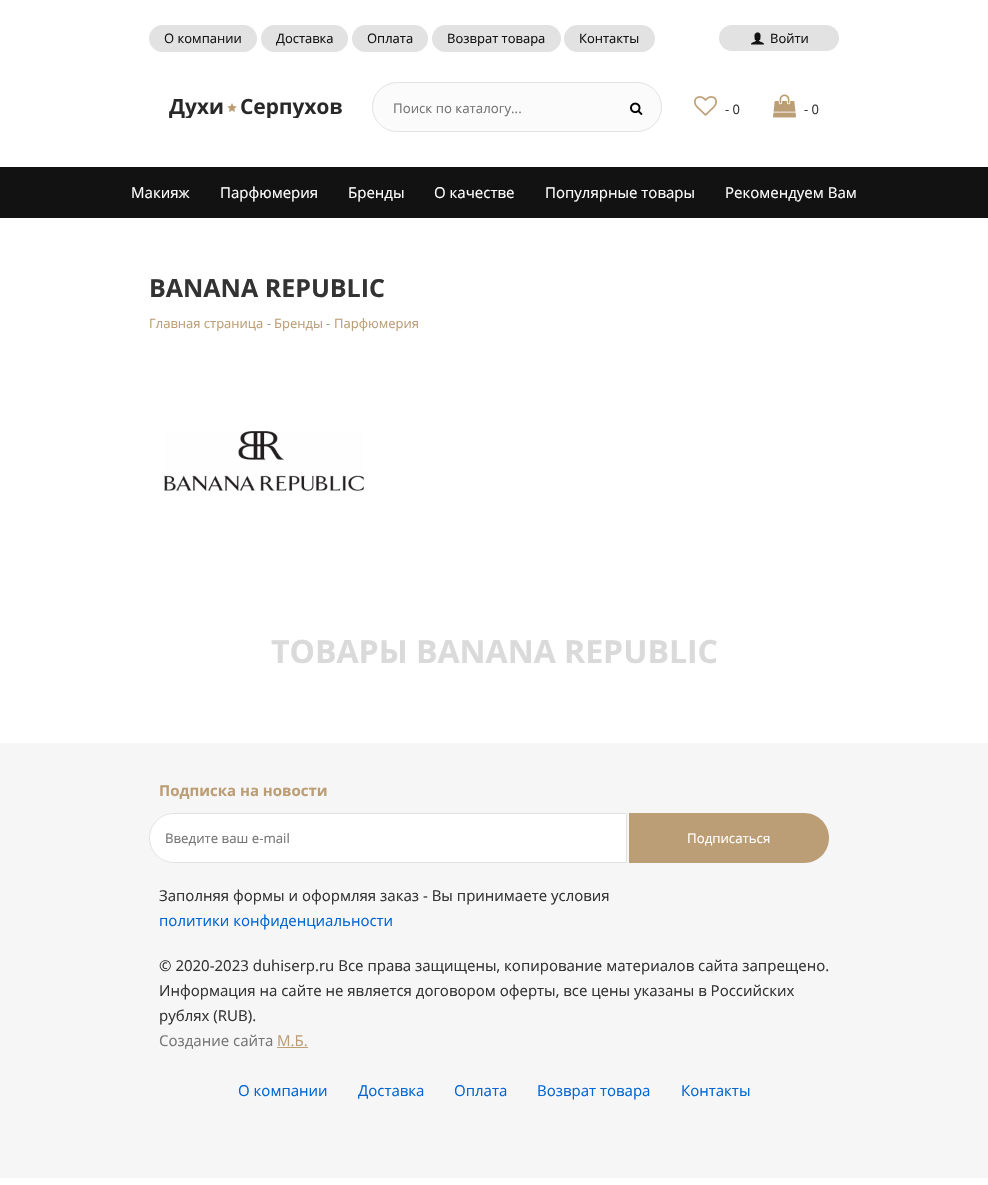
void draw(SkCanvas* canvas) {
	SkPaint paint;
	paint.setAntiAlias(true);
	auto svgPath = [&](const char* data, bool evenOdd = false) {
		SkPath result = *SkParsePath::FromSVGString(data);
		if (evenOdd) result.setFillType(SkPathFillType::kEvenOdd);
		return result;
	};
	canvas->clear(0xffffffff);
	paint.setColor(0xffe2e2e2);
	canvas->drawRoundRect(SkRect::MakeXYWH(149, 25, 108, 27), 13.5, 13.5, paint);
	SkFont f1(fontMgr->matchFamilyStyle("Open Sans", SkFontStyle::Normal()), 13);
	f1.setSubpixel(true);
	paint.setColor(0xff121212);
	canvas->drawString("О компании", 164, 43, f1, paint);
	paint.setColor(0xffe2e2e2);
	canvas->drawRoundRect(SkRect::MakeXYWH(261, 25, 87, 27), 13.5, 13.5, paint);
	paint.setColor(0xff121212);
	canvas->drawString("Доставка", 276, 43, f1, paint);
	paint.setColor(0xffe2e2e2);
	canvas->drawRoundRect(SkRect::MakeXYWH(352, 25, 76, 27), 13.5, 13.5, paint);
	paint.setColor(0xff121212);
	canvas->drawString("Оплата", 367, 43, f1, paint);
	paint.setColor(0xffe2e2e2);
	canvas->drawRoundRect(SkRect::MakeXYWH(432, 25, 129, 27), 13.5, 13.5, paint);
	paint.setColor(0xff121212);
	canvas->drawString("Возврат товара", 447, 43, f1, paint);
	paint.setColor(0xffe2e2e2);
	canvas->drawRoundRect(SkRect::MakeXYWH(564, 25, 91, 27), 13.5, 13.5, paint);
	paint.setColor(0xff121212);
	canvas->drawString("Контакты", 579, 43, f1, paint);
	paint.setColor(0xffe2e2e2);
	canvas->drawRoundRect(SkRect::MakeXYWH(719, 25, 120, 26), 13, 13, paint);
	canvas->drawImageRect(SkImages::DeferredFromEncodedData(SkData::MakeFromFileName("img1.png")), SkRect::MakeXYWH(751, 32, 13, 13), SkSamplingOptions());
	paint.setColor(0xff121212);
	canvas->drawString("Войти", 770, 43, f1, paint);
	canvas->drawImageRect(SkImages::DeferredFromEncodedData(SkData::MakeFromFileName("img2.png")), SkRect::MakeXYWH(169, 98, 173, 20), SkSamplingOptions());
	paint.setColor(0xfffbfbfb);
	canvas->drawRoundRect(SkRect::MakeXYWH(372.5, 82.5, 289, 49), 24.5, 24.5, paint);
	paint.setStroke(true);
	paint.setStrokeWidth(1);
	paint.setColor(0xffe2e2e2);
	canvas->drawRoundRect(SkRect::MakeXYWH(372.5, 82.5, 289, 49), 24.5, 24.5, paint);
	SkFont f2(fontMgr->matchFamilyStyle("Open Sans", SkFontStyle::Normal()), 13.25);
	f2.setSubpixel(true);
	paint.setStroke(false);
	paint.setColor(0xff757575);
	canvas->drawString("Поиск по каталогу...", 393, 113, f2, paint);
	canvas->drawImageRect(SkImages::DeferredFromEncodedData(SkData::MakeFromFileName("img3.png")), SkRect::MakeXYWH(630, 102, 13, 13), SkSamplingOptions());
	canvas->drawImageRect(SkImages::DeferredFromEncodedData(SkData::MakeFromFileName("img4.png")), SkRect::MakeXYWH(694, 96, 23, 20), SkSamplingOptions());
	paint.setColor(0xff333333);
	canvas->drawString("- 0", 725, 114, f1, paint);
	canvas->drawImageRect(SkImages::DeferredFromEncodedData(SkData::MakeFromFileName("img5.png")), SkRect::MakeXYWH(773, 94, 23, 24), SkSamplingOptions());
	canvas->drawString("- 0", 804, 114, f1, paint);
	paint.setColor(0xff121212);
	canvas->drawRect(SkRect::MakeXYWH(0, 167, 988, 51), paint);
	SkFont f3(fontMgr->matchFamilyStyle("Open Sans", SkFontStyle::Normal()), 15);
	f3.setSubpixel(true);
	paint.setColor(0xffffffff);
	canvas->drawString("Макияж", 131, 198, f3, paint);
	canvas->drawString("Парфюмерия", 220, 198, f3, paint);
	canvas->drawString("Бренды", 348, 198, f3, paint);
	canvas->drawString("О качестве", 434, 198, f3, paint);
	canvas->drawString("Популярные товары", 545, 198, f3, paint);
	canvas->drawString("Рекомендуем Вам", 725, 198, f3, paint);
	SkFont f4(fontMgr->matchFamilyStyle("Open Sans", SkFontStyle::Bold()), 25);
	f4.setSubpixel(true);
	paint.setColor(0xff333333);
	canvas->drawString("BANANA REPUBLIC", 149, 297, f4, paint);
	paint.setColor(0xffbc9e76);
	canvas->drawString("Главная страница", 149, 328, f1, paint);
	SkFont f5(fontMgr->matchFamilyStyle("Open Sans", SkFontStyle::Italic()), 13);
	f5.setSubpixel(true);
	paint.setColor(0xff999999);
	canvas->drawString("-", 267, 328, f5, paint);
	paint.setColor(0xffbc9e76);
	canvas->drawString("Бренды", 274, 328, f1, paint);
	paint.setColor(0xff999999);
	canvas->drawString("-", 326, 328, f5, paint);
	paint.setColor(0xffbc9e76);
	canvas->drawString("Парфюмерия", 334, 328, f1, paint);
	canvas->drawImageRect(SkImages::DeferredFromEncodedData(SkData::MakeFromFileName("img6.png")), SkRect::MakeXYWH(164, 431, 200, 60), SkSamplingOptions());
	SkFont f6(fontMgr->matchFamilyStyle("Open Sans", SkFontStyle::Bold()), 32);
	f6.setSubpixel(true);
	paint.setColor(0xffdbdada);
	canvas->drawString("ТОВАРЫ BANANA REPUBLIC", 271, 663, f6, paint);
	paint.setColor(0xfff6f6f6);
	canvas->drawRect(SkRect::MakeXYWH(0, 743, 988, 435), paint);
	SkFont f7(fontMgr->matchFamilyStyle("Open Sans", SkFontStyle::Bold()), 15);
	f7.setSubpixel(true);
	paint.setColor(0xffbc9e76);
	canvas->drawString("Подписка на новости", 159, 796, f7, paint);
	paint.setColor(0xffffffff);
	canvas->drawPath(svgPath("M174 813.5H626.5V862.5H174C160.5 862.5 149.5 851.5 149.5 838C149.5 824.5 160.5 813.5 174 813.5Z"), paint);
	paint.setStroke(true);
	paint.setColor(0xffe2e2e2);
	canvas->drawPath(svgPath("M174 813.5H626.5V862.5H174C160.5 862.5 149.5 851.5 149.5 838C149.5 824.5 160.5 813.5 174 813.5Z"), paint);
	paint.setStroke(false);
	paint.setColor(0xff757575);
	canvas->drawString("Введите ваш e-mail", 165, 843, f2, paint);
	paint.setColor(0xffbc9e76);
	canvas->drawPath(svgPath("M629 813H804C818 813 829 824 829 838C829 852 818 863 804 863H629Z"), paint);
	paint.setColor(0xffffffff);
	canvas->drawString("Подписаться", 687, 843, f2, paint);
	paint.setColor(0xff333333);
	canvas->drawString("Заполняя формы и оформляя заказ - Вы принимаете условия", 159, 901, f3, paint);
	paint.setColor(0xff0066d4);
	canvas->drawString("политики конфиденциальности", 159, 926, f3, paint);
	paint.setColor(0xff333333);
	canvas->drawString("© 2020-2023 duhiserp.ru Все права защищены, копирование материалов сайта запрещено.", 159, 971, f3, paint);
	canvas->drawString("Информация на сайте не является договором оферты, все цены указаны в Российских", 159, 996, f3, paint);
	canvas->drawString("рублях (RUB).", 159, 1021, f3, paint);
	paint.setColor(0xff757575);
	canvas->drawString("Создание сайта", 159, 1046, f3, paint);
	paint.setColor(0xffbc9e76);
	canvas->drawString("М.Б.", 277, 1046, f3, paint);
	canvas->drawRect(SkRect::MakeXYWH(277, 1047, 31, 1), paint);
	paint.setColor(0xff0066d4);
	canvas->drawString("О компании", 238, 1096, f3, paint);
	canvas->drawString("Доставка", 358, 1096, f3, paint);
	canvas->drawString("Оплата", 454, 1096, f3, paint);
	canvas->drawString("Возврат товара", 537, 1096, f3, paint);
	canvas->drawString("Контакты", 681, 1096, f3, paint);
}
